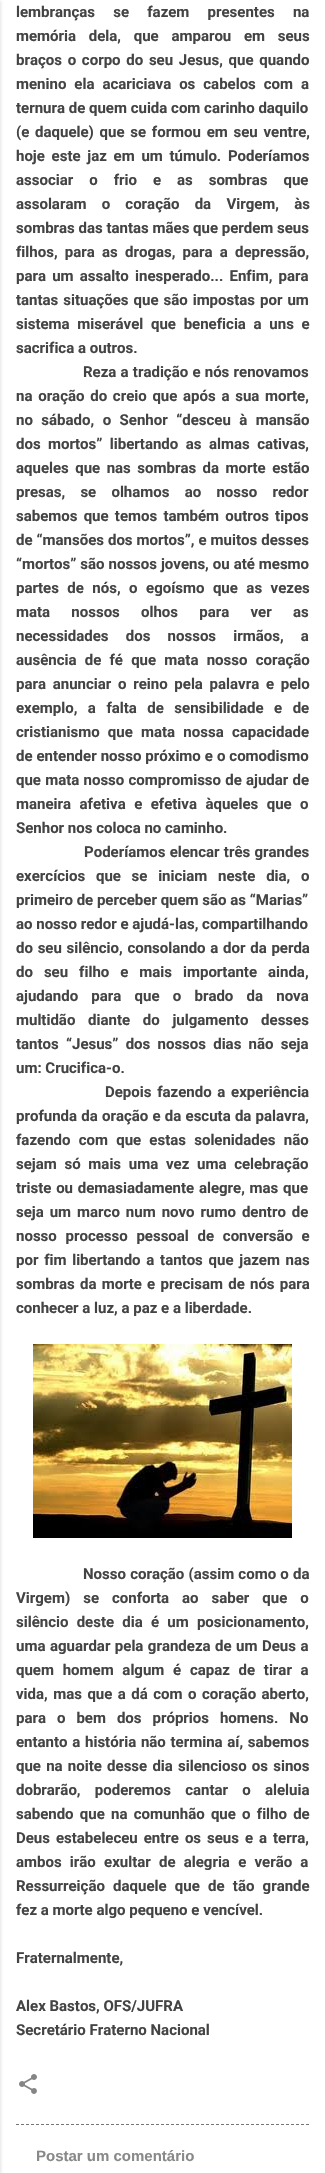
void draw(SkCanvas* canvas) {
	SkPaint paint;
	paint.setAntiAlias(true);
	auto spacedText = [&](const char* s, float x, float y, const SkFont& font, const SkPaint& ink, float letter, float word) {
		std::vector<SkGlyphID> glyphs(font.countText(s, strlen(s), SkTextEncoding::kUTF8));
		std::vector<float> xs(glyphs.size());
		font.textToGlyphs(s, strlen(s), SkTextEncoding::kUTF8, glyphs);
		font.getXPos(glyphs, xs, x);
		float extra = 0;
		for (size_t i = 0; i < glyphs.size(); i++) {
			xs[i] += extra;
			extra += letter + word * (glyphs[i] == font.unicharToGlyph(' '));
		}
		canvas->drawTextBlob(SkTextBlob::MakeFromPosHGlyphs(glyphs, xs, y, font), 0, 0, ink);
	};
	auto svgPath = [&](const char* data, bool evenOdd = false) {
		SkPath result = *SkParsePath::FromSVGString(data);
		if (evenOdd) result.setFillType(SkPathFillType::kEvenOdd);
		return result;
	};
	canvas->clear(0xffffffff);
	paint.setColor(0x1a000000);
	paint.setMaskFilter(SkMaskFilter::MakeBlur(kNormal_SkBlurStyle, 1.5));
	canvas->drawRect(SkRect::MakeXYWH(-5, 1, 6, 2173), paint);
	paint.setMaskFilter(nullptr);
	SkFont f1(fontMgr->matchFamilyStyle("Roboto", SkFontStyle::Bold()), 15);
	f1.setSubpixel(true);
	paint.setColor(0xff444444);
	spacedText("lembranças se fazem presentes na", 16, 17, f1, paint, 0, 14.5);
	spacedText("memória dela, que amparou em seus", 16, 41, f1, paint, 0, 9);
	spacedText("braços o corpo do seu Jesus, que quando", 16, 65, f1, paint, 0, 2);
	spacedText("menino ela acariciava os cabelos com a", 16, 89, f1, paint, 0, 4.25);
	canvas->drawString("ternura de quem cuida com carinho daquilo", 16, 113, f1, paint);
	spacedText("(e daquele) que se formou em seu ventre,", 16, 137, f1, paint, 0, 2);
	spacedText("hoje este jaz em um túmulo. Poderíamos", 16, 161, f1, paint, 0, 3);
	spacedText("associar o frio e as sombras que", 16, 185, f1, paint, 0, 12.25);
	spacedText("assolaram o coração da Virgem, às", 16, 209, f1, paint, 0, 11.5);
	canvas->drawString("sombras das tantas mães que perdem seus", 16, 233, f1, paint);
	spacedText("filhos, para as drogas, para a depressão,", 16, 257, f1, paint, 0, 3.5);
	spacedText("para um assalto inesperado... Enfim, para", 16, 281, f1, paint, 0, 2.5);
	spacedText("tantas situações que são impostas por um", 16, 305, f1, paint, 0, 1.25);
	spacedText("sistema miserável que beneficia a uns e", 16, 329, f1, paint, 0, 4);
	canvas->drawString("sacrifica a outros.", 16, 353, f1, paint);
	spacedText("Reza a tradição e nós renovamos", 83, 377, f1, paint, 0, 0.5);
	spacedText("na oração do creio que após a sua morte,", 16, 401, f1, paint, 0, 2);
	spacedText("no sábado, o Senhor “desceu à mansão", 16, 425, f1, paint, 0, 4.75);
	spacedText("dos mortos” libertando as almas cativas,", 16, 449, f1, paint, 0, 3.75);
	spacedText("aqueles que nas sombras da morte estão", 16, 473, f1, paint, 0, 2.75);
	spacedText("presas, se olhamos ao nosso redor", 16, 497, f1, paint, 0, 11.5);
	spacedText("sabemos que temos também outros tipos", 16, 521, f1, paint, 0, 2.5);
	spacedText("de “mansões dos mortos”, e muitos desses", 16, 545, f1, paint, 0, 0.25);
	spacedText("“mortos” são nossos jovens, ou até mesmo", 16, 569, f1, paint, 0, 0.25);
	spacedText("partes de nós, o egoísmo que as vezes", 16, 593, f1, paint, 0, 4.75);
	spacedText("mata nossos olhos para ver as", 16, 617, f1, paint, 0, 17.5);
	spacedText("necessidades dos nossos irmãos, a", 16, 641, f1, paint, 0, 13.5);
	spacedText("ausência de fé que mata nosso coração", 16, 665, f1, paint, 0, 4.5);
	spacedText("para anunciar o reino pela palavra e pelo", 16, 689, f1, paint, 0, 3);
	spacedText("exemplo, a falta de sensibilidade e de", 16, 713, f1, paint, 0, 6.75);
	spacedText("cristianismo que mata nossa capacidade", 16, 737, f1, paint, 0, 4.5);
	spacedText("de entender nosso próximo e o comodismo", 16, 761, f1, paint, 0, 0.25);
	spacedText("que mata nosso compromisso de ajudar de", 16, 785, f1, paint, 0, 0.5);
	spacedText("maneira afetiva e efetiva àqueles que o", 16, 809, f1, paint, 0, 4.75);
	canvas->drawString("Senhor nos coloca no caminho.", 16, 833, f1, paint);
	spacedText("Poderíamos elencar três grandes", 84, 857, f1, paint, 0, 0.5);
	spacedText("exercícios que se iniciam neste dia, o", 16, 881, f1, paint, 0, 7);
	canvas->drawString("primeiro de perceber quem são as “Marias”", 16, 905, f1, paint);
	canvas->drawString("ao nosso redor e ajudá-las, compartilhando", 16, 929, f1, paint);
	spacedText("do seu silêncio, consolando a dor da perda", 16, 953, f1, paint, 0, 1);
	spacedText("do seu filho e mais importante ainda,", 16, 977, f1, paint, 0, 7.25);
	spacedText("ajudando para que o brado da nova", 16, 1001, f1, paint, 0, 9.5);
	spacedText("multidão diante do julgamento desses", 16, 1025, f1, paint, 0, 9);
	spacedText("tantos “Jesus” dos nossos dias não seja", 16, 1049, f1, paint, 0, 3.5);
	canvas->drawString("um: Crucifica-o.", 16, 1073, f1, paint);
	spacedText("Depois fazendo a experiência", 105, 1097, f1, paint, 0, 2);
	spacedText("profunda da oração e da escuta da palavra,", 16, 1121, f1, paint, 0, 0.5);
	spacedText("fazendo com que estas solenidades não", 16, 1145, f1, paint, 0, 4.5);
	spacedText("sejam só mais uma vez uma celebração", 16, 1169, f1, paint, 0, 4);
	spacedText("triste ou demasiadamente alegre, mas que", 16, 1193, f1, paint, 0, 1);
	spacedText("seja um marco num novo rumo dentro de", 16, 1217, f1, paint, 0, 2.25);
	spacedText("nosso processo pessoal de conversão e", 16, 1241, f1, paint, 0, 5);
	spacedText("por fim libertando a tantos que jazem nas", 16, 1265, f1, paint, 0, 2);
	spacedText("sombras da morte e precisam de nós para", 16, 1289, f1, paint, 0, 1.5);
	canvas->drawString("conhecer a luz, a paz e a liberdade.", 16, 1313, f1, paint);
	canvas->drawImageRect(SkImages::DeferredFromEncodedData(SkData::MakeFromFileName("img1.png")), SkRect::MakeXYWH(33, 1344, 259, 194), SkSamplingOptions());
	spacedText("Nosso coração (assim como o da", 83, 1579, f1, paint, 0, 0.5);
	spacedText("Virgem) se conforta ao saber que o", 16, 1603, f1, paint, 0, 9.25);
	spacedText("silêncio deste dia é um posicionamento,", 16, 1627, f1, paint, 0, 4.5);
	spacedText("uma aguardar pela grandeza de um Deus a", 16, 1651, f1, paint, 0, 0.75);
	spacedText("quem homem algum é capaz de tirar a", 16, 1675, f1, paint, 0, 5);
	spacedText("vida, mas que a dá com o coração aberto,", 16, 1699, f1, paint, 0, 1.75);
	spacedText("para o bem dos próprios homens. No", 16, 1723, f1, paint, 0, 7.25);
	spacedText("entanto a história não termina aí, sabemos", 16, 1747, f1, paint, 0, 1);
	spacedText("que na noite desse dia silencioso os sinos", 16, 1771, f1, paint, 0, 1.5);
	spacedText("dobrarão, poderemos cantar o aleluia", 16, 1795, f1, paint, 0, 10.5);
	spacedText("sabendo que na comunhão que o filho de", 16, 1819, f1, paint, 0, 2.5);
	spacedText("Deus estabeleceu entre os seus e a terra,", 16, 1843, f1, paint, 0, 2.25);
	spacedText("ambos irão exultar de alegria e verão a", 16, 1867, f1, paint, 0, 4.5);
	spacedText("Ressurreição daquele que de tão grande", 16, 1891, f1, paint, 0, 4.5);
	canvas->drawString("fez a morte algo pequeno e vencível.", 16, 1915, f1, paint);
	canvas->drawString("Fraternalmente,", 16, 1963, f1, paint);
	canvas->drawString("Alex Bastos, OFS/JUFRA", 16, 2011, f1, paint);
	canvas->drawString("Secretário Fraterno Nacional", 16, 2035, f1, paint);
	canvas->drawImageRect(SkImages::DeferredFromEncodedData(SkData::MakeFromFileName("img2.png")), SkRect::MakeXYWH(19, 2074, 18, 20), SkSamplingOptions());
	paint.setStroke(true);
	paint.setStrokeWidth(1);
	paint.setColor(0xff757575);
	paint.setPathEffect(SkDashPathEffect::Make({{3, 2}}, 0));
	canvas->drawPath(svgPath("M16 2124.5H309"), paint);
	paint.setPathEffect(nullptr);
	SkFont f2(fontMgr->matchFamilyStyle("Liberation Sans", SkFontStyle::Bold()), 15);
	f2.setSubpixel(true);
	paint.setStroke(false);
	paint.setColor(0xff898989);
	canvas->drawString("Postar um comentário", 36, 2161, f2, paint);
}
